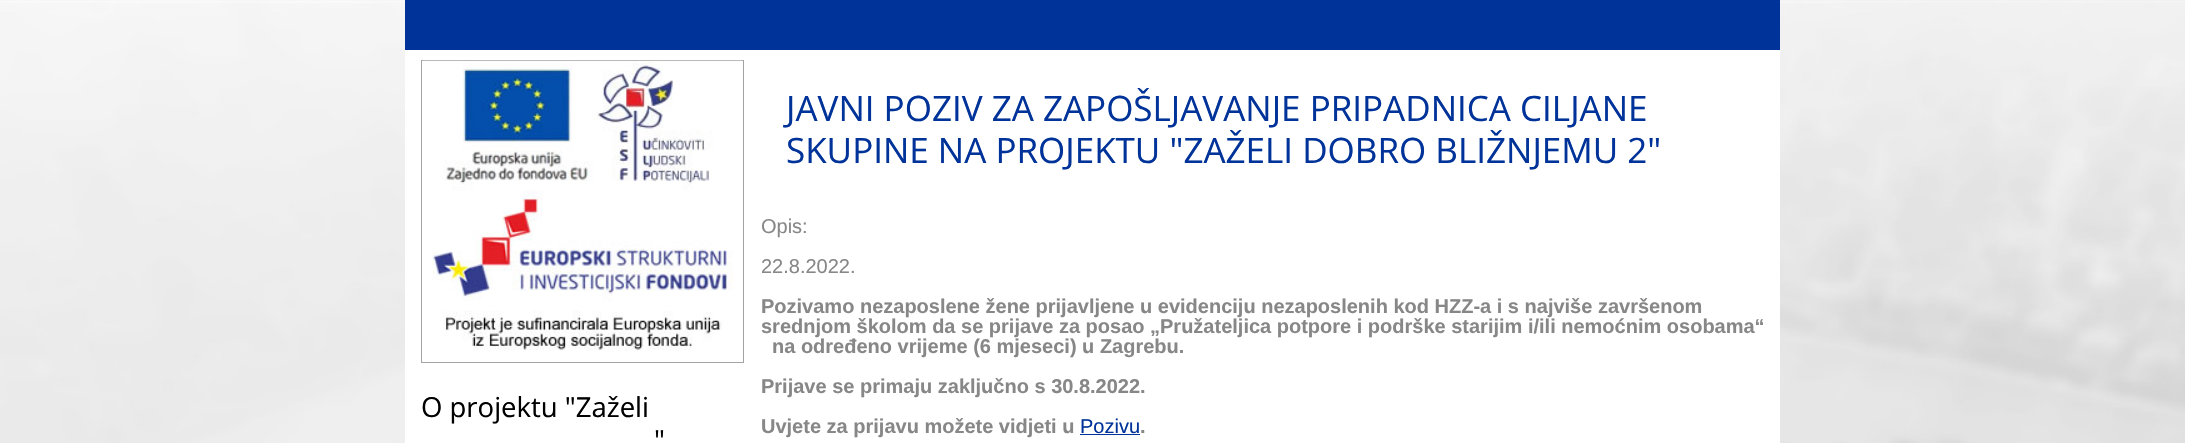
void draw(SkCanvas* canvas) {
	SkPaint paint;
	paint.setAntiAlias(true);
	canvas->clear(0xffffffff);
	canvas->drawImageRect(SkImages::DeferredFromEncodedData(SkData::MakeFromFileName("img1.png")), SkRect::MakeXYWH(0, 0, 2185, 443), SkSamplingOptions());
	paint.setColor(0xffffffff);
	canvas->drawRect(SkRect::MakeXYWH(405, 50, 1375, 393), paint);
	paint.setColor(0xff003399);
	canvas->drawRect(SkRect::MakeXYWH(405, 0, 1375, 50), paint);
	paint.setStroke(true);
	paint.setStrokeWidth(1);
	paint.setColor(0xffa3a3a3);
	canvas->drawRect(SkRect::MakeXYWH(421.5, 60.5, 322, 302), paint);
	canvas->drawImageRect(SkImages::DeferredFromEncodedData(SkData::MakeFromFileName("img2.png")), SkRect::MakeXYWH(422, 60, 321, 291), SkSamplingOptions());
	SkFont f1(fontMgr->matchFamilyStyle("Open Sans", SkFontStyle::Normal()), 27.5);
	f1.setSubpixel(true);
	paint.setStroke(false);
	paint.setColor(0xff000000);
	canvas->drawString("O projektu \"Zaželi", 421, 417, f1, paint);
	canvas->drawString("\"", 654, 450, f1, paint);
	SkFont f2(fontMgr->matchFamilyStyle("Open Sans", SkFontStyle::Normal()), 35);
	f2.setSubpixel(true);
	paint.setColor(0xff003399);
	canvas->drawString("JAVNI POZIV ZA ZAPOŠLJAVANJE PRIPADNICA CILJANE", 786, 121, f2, paint);
	canvas->drawString("SKUPINE NA PROJEKTU \"ZAŽELI DOBRO BLIŽNJEMU 2\"", 786, 163, f2, paint);
	SkFont f3(fontMgr->matchFamilyStyle("Liberation Sans", SkFontStyle::Normal()), 20);
	f3.setSubpixel(true);
	paint.setColor(0xff878787);
	canvas->drawString("Opis:", 761, 233, f3, paint);
	canvas->drawString("22.8.2022.", 761, 273, f3, paint);
	SkFont f4(fontMgr->matchFamilyStyle("Liberation Sans", SkFontStyle::Bold()), 20);
	f4.setSubpixel(true);
	canvas->drawString("Pozivamo nezaposlene žene prijavljene u evidenciju nezaposlenih kod HZZ-a i s najviše završenom", 761, 313, f4, paint);
	canvas->drawString("srednjom školom da se prijave za posao „Pružateljica potpore i podrške starijim i/ili nemoćnim osobama“", 761, 333, f4, paint);
	canvas->drawString("na određeno vrijeme (6 mjeseci) u Zagrebu.", 772, 353, f4, paint);
	canvas->drawString("Prijave se primaju zaključno s 30.8.2022.", 761, 393, f4, paint);
	canvas->drawString("Uvjete za prijavu možete vidjeti u", 761, 433, f4, paint);
	paint.setColor(0xff003399);
	canvas->drawString("Pozivu", 1080, 433, f3, paint);
	paint.setColor(0xff878787);
	canvas->drawString(".", 1140, 433, f4, paint);
	paint.setColor(0xff003399);
	canvas->drawRect(SkRect::MakeXYWH(1080, 434, 60, 1), paint);
}
